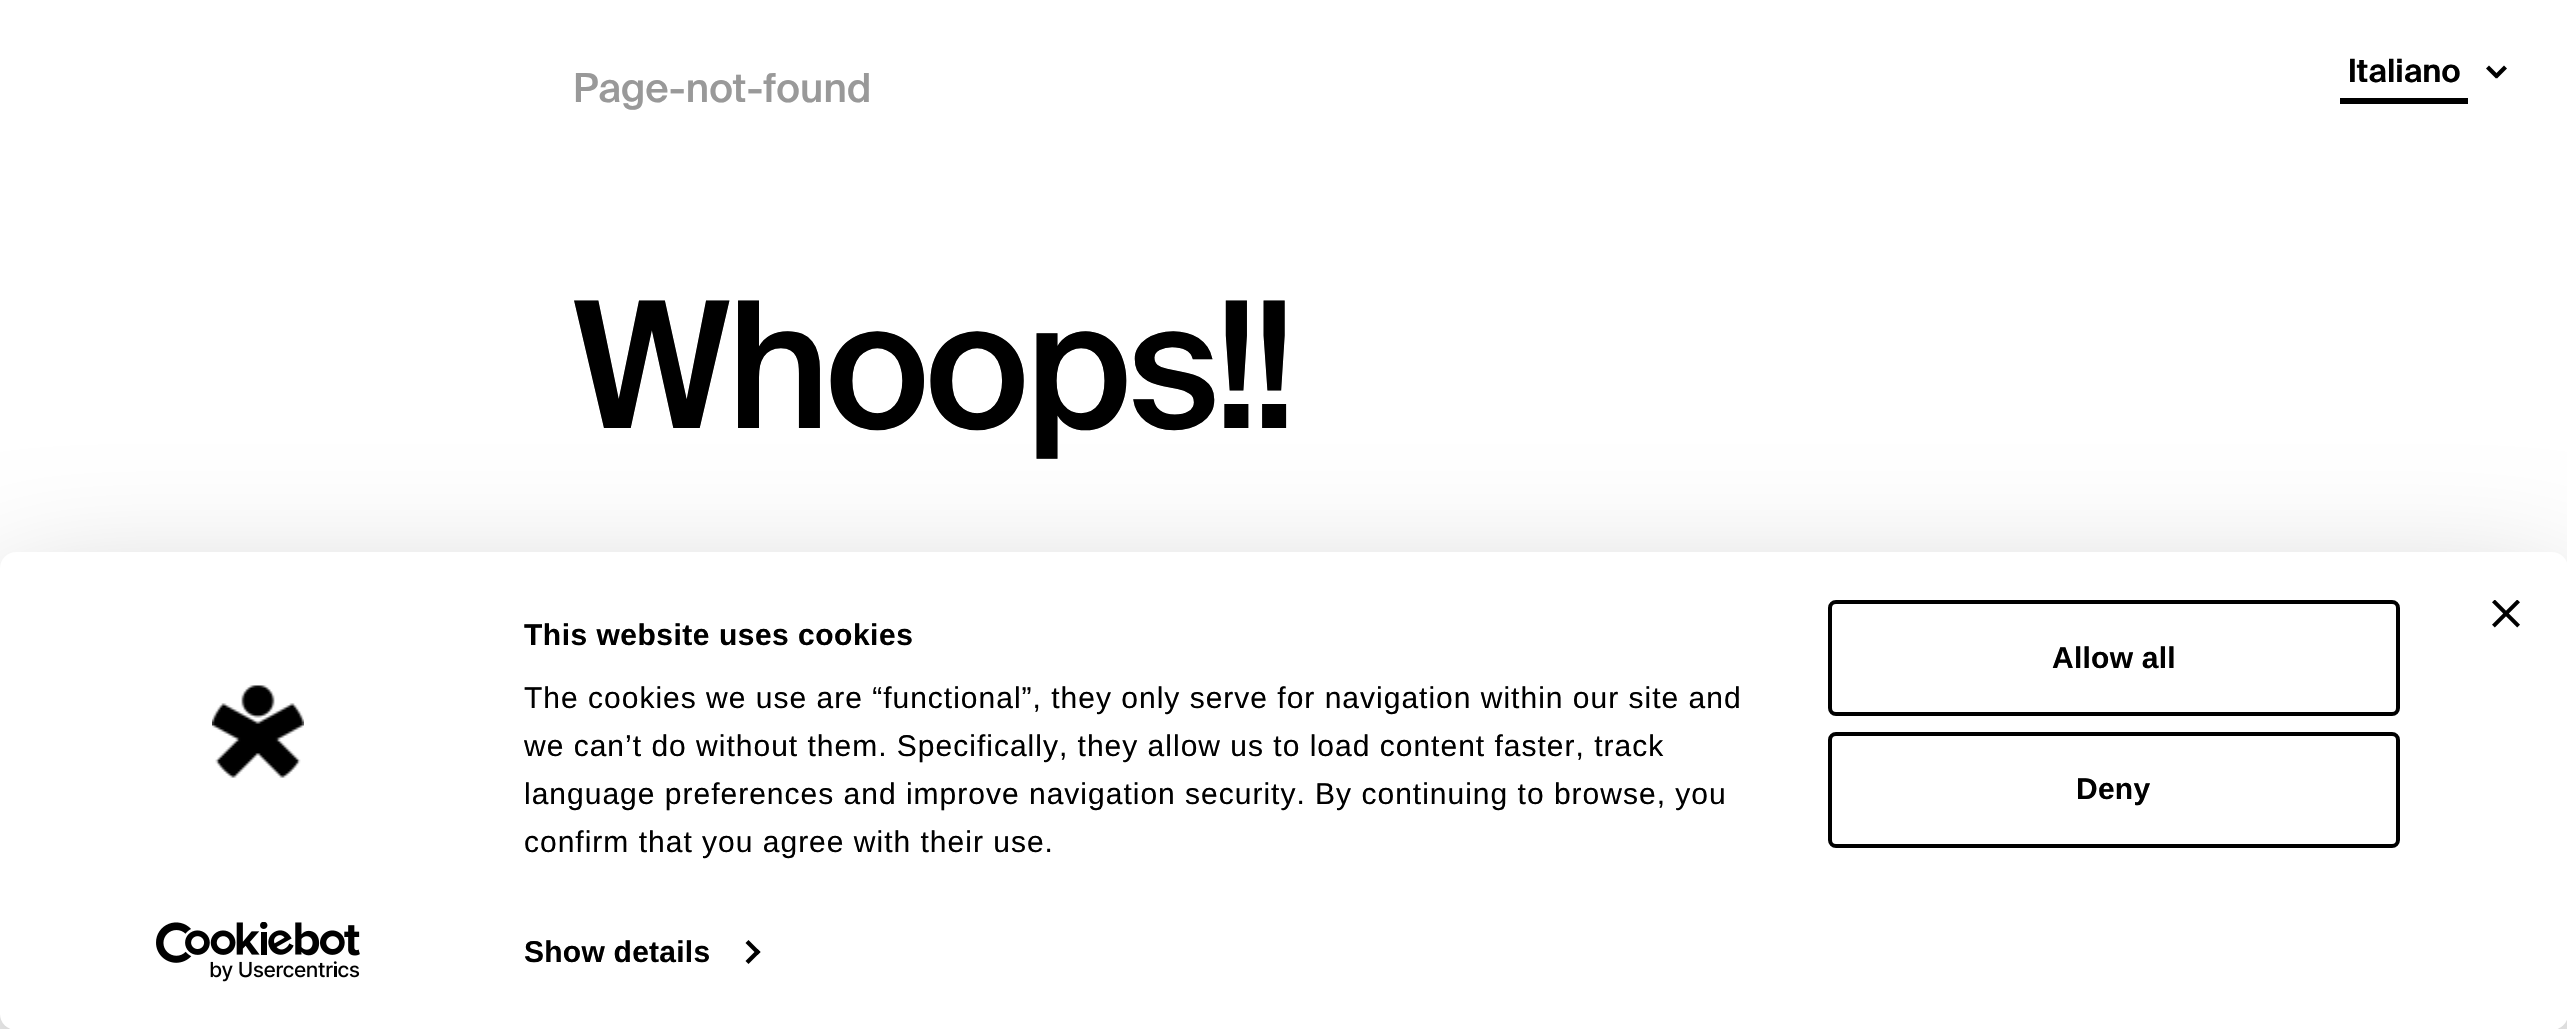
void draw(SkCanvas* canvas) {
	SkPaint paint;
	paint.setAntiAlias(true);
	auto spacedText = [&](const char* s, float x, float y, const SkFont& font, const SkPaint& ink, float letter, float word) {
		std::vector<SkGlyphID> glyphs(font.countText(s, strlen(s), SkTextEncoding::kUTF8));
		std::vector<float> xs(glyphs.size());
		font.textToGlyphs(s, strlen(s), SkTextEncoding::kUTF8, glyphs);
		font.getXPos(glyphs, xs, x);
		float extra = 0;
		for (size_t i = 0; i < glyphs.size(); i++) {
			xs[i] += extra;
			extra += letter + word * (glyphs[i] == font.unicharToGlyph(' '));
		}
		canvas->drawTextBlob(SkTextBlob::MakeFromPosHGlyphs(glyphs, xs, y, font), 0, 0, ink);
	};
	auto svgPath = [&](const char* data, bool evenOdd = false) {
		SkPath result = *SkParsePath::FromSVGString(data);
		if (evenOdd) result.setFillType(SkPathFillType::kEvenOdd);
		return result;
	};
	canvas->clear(0xffffffff);
	SkFont f1(fontMgr->matchFamilyStyle("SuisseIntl", SkFontStyle(600, SkFontStyle::kNormal_Width, SkFontStyle::kUpright_Slant)), 32);
	f1.setSubpixel(true);
	paint.setColor(0xff000000);
	canvas->drawString("Italiano", 2348, 82, f1, paint);
	canvas->drawRect(SkRect::MakeXYWH(2340, 98, 128, 6), paint);
	canvas->drawPath(svgPath("M2494 75.5L2504 65.5L2507 68.5L2497 78.5Z"), paint);
	canvas->drawPath(svgPath("M2489 65.5L2499 75.5L2496 78.5L2486 68.5Z"), paint);
	SkFont f2(fontMgr->matchFamilyStyle("SuisseIntl", SkFontStyle(500, SkFontStyle::kNormal_Width, SkFontStyle::kUpright_Slant)), 40);
	f2.setSubpixel(true);
	paint.setColor(0xff999999);
	canvas->drawString("Page-not-found", 573, 102, f2, paint);
	SkFont f3(fontMgr->matchFamilyStyle("SuisseIntl", SkFontStyle(500, SkFontStyle::kNormal_Width, SkFontStyle::kUpright_Slant)), 176);
	f3.setSubpixel(true);
	paint.setColor(0xff000000);
	spacedText("Whoops!!", 573, 428, f3, paint, -4.5, 0);
	paint.setColor(0x4d000000);
	paint.setMaskFilter(SkMaskFilter::MakeBlur(kNormal_SkBlurStyle, 70));
	canvas->drawRoundRect(SkRect::MakeXYWH(0, 612, 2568, 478), 16, 16, paint);
	paint.setMaskFilter(nullptr);
	paint.setColor(0xffffffff);
	canvas->drawRoundRect(SkRect::MakeXYWH(0, 552, 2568, 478), 16, 16, paint);
	canvas->drawImageRect(SkImages::DeferredFromEncodedData(SkData::MakeFromFileName("img1.png")), SkRect::MakeXYWH(2492, 600, 28, 28), SkSamplingOptions());
	canvas->drawImageRect(SkImages::DeferredFromEncodedData(SkData::MakeFromFileName("img2.png")), SkRect::MakeXYWH(212, 685, 92, 93), SkSamplingOptions());
	canvas->drawImageRect(SkImages::DeferredFromEncodedData(SkData::MakeFromFileName("img3.png")), SkRect::MakeXYWH(156, 922, 204, 60), SkSamplingOptions());
	SkFont f4(fontMgr->matchFamilyStyle("Liberation Sans", SkFontStyle::Bold()), 30);
	f4.setSubpixel(true);
	paint.setColor(0xff000000);
	spacedText("This website uses cookies", 524, 645, f4, paint, 0.5, 0);
	SkFont f5(fontMgr->matchFamilyStyle("Liberation Sans", SkFontStyle::Normal()), 30);
	f5.setSubpixel(true);
	spacedText("The cookies we use are “functional”, they only serve for navigation within our site and", 524, 708, f5, paint, 1, 0);
	spacedText("we can’t do without them. Specifically, they allow us to load content faster, track", 524, 756, f5, paint, 1, 0);
	spacedText("language preferences and improve navigation security. By continuing to browse, you", 524, 804, f5, paint, 1, 0);
	spacedText("confirm that you agree with their use.", 524, 852, f5, paint, 1, 0);
	spacedText("Show details", 524, 962, f4, paint, 0.25, 0);
	canvas->drawPath(svgPath("M748.5 940L760.5 952L757.5 955L745.5 943Z"), paint);
	canvas->drawPath(svgPath("M757.5 949L760.5 952L748.5 964L745.5 961Z"), paint);
	paint.setStroke(true);
	paint.setStrokeWidth(4);
	canvas->drawRoundRect(SkRect::MakeXYWH(1830, 602, 568, 112), 6, 6, paint);
	paint.setStroke(false);
	spacedText("Allow all", 2052, 668, f4, paint, 0.25, 0);
	paint.setStroke(true);
	canvas->drawRoundRect(SkRect::MakeXYWH(1830, 734, 568, 112), 6, 6, paint);
	paint.setStroke(false);
	spacedText("Deny", 2076, 799, f4, paint, 0.25, 0);
}
